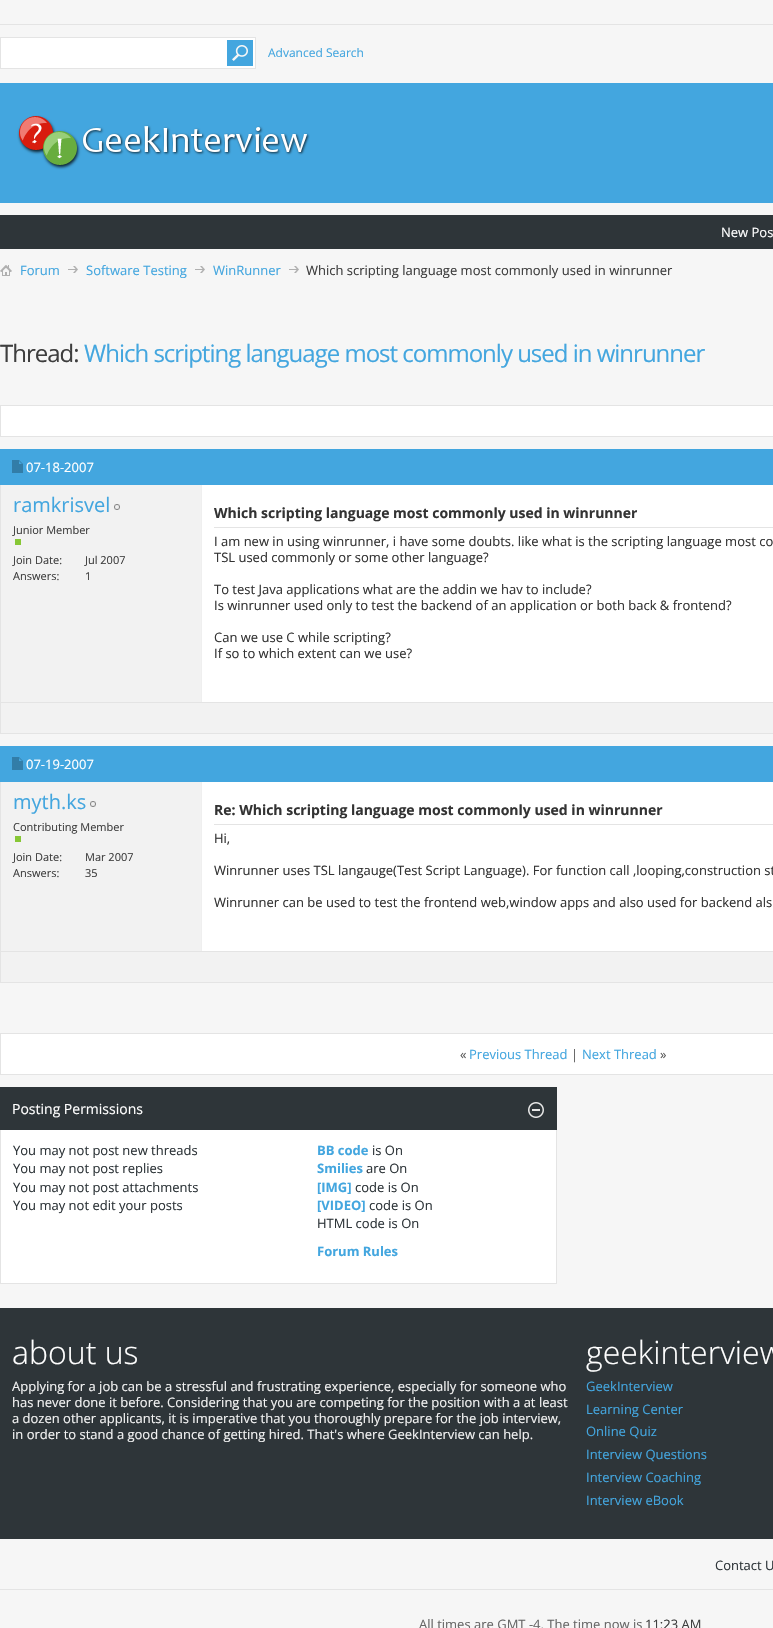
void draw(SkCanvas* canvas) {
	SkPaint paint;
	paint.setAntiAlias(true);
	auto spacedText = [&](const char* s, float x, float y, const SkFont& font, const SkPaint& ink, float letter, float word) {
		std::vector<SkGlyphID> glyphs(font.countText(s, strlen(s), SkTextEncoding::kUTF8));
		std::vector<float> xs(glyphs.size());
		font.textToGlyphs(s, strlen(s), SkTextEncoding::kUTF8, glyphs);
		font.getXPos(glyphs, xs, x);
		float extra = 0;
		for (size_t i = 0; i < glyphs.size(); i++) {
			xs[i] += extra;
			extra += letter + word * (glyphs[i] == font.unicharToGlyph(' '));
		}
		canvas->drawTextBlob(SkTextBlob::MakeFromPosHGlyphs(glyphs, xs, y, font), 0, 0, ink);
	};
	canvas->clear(0xfff6f6f6);
	paint.setColor(0xffe4e4e4);
	canvas->drawRect(SkRect::MakeXYWH(0, 24, 773, 1), paint);
	paint.setColor(0xffffffff);
	canvas->drawRect(SkRect::MakeXYWH(0.5, 37.5, 255, 31), paint);
	paint.setStroke(true);
	paint.setStrokeWidth(1);
	paint.setColor(0xffe4e4e4);
	canvas->drawRect(SkRect::MakeXYWH(0.5, 37.5, 255, 31), paint);
	canvas->drawImageRect(SkImages::DeferredFromEncodedData(SkData::MakeFromFileName("img1.png")), SkRect::MakeXYWH(227, 40, 26, 26), SkSamplingOptions());
	SkFont f1(fontMgr->matchFamilyStyle("Open Sans", SkFontStyle::Normal()), 12);
	f1.setSubpixel(true);
	paint.setStroke(false);
	paint.setColor(0xff43a6df);
	canvas->drawString("Advanced Search", 268, 57, f1, paint);
	canvas->drawRect(SkRect::MakeXYWH(0, 83, 773, 120), paint);
	canvas->drawImageRect(SkImages::DeferredFromEncodedData(SkData::MakeFromFileName("img2.png")), SkRect::MakeXYWH(17, 115, 293, 55), SkSamplingOptions());
	paint.setColor(0xff2e3539);
	canvas->drawRect(SkRect::MakeXYWH(0, 215, 773, 34), paint);
	SkFont f2(fontMgr->matchFamilyStyle("Open Sans", SkFontStyle::Normal()), 13);
	f2.setSubpixel(true);
	paint.setColor(0xffffffff);
	canvas->drawString("New Pos", 721, 237, f2, paint);
	canvas->drawImageRect(SkImages::DeferredFromEncodedData(SkData::MakeFromFileName("img3.png")), SkRect::MakeXYWH(0, 265, 12, 11), SkSamplingOptions());
	canvas->drawImageRect(SkImages::DeferredFromEncodedData(SkData::MakeFromFileName("img4.png")), SkRect::MakeXYWH(68, 266, 10, 7), SkSamplingOptions());
	paint.setColor(0xff43a6df);
	canvas->drawString("Forum", 20, 275, f2, paint);
	canvas->drawImageRect(SkImages::DeferredFromEncodedData(SkData::MakeFromFileName("img4.png")), SkRect::MakeXYWH(195, 266, 10, 7), SkSamplingOptions());
	canvas->drawString("Software Testing", 86, 275, f2, paint);
	canvas->drawImageRect(SkImages::DeferredFromEncodedData(SkData::MakeFromFileName("img4.png")), SkRect::MakeXYWH(289, 266, 10, 7), SkSamplingOptions());
	canvas->drawString("WinRunner", 213, 275, f2, paint);
	paint.setColor(0xff3e3e3e);
	canvas->drawString("Which scripting language most commonly used in winrunner", 306, 275, f2, paint);
	SkFont f3(fontMgr->matchFamilyStyle("Open Sans", SkFontStyle::Normal()), 24);
	f3.setSubpixel(true);
	spacedText("Thread:", 0, 362, f3, paint, -1, 0);
	paint.setColor(0xff43a6df);
	spacedText("Which scripting language most commonly used in winrunner", 84, 362, f3, paint, -1, 0);
	paint.setColor(0xffffffff);
	canvas->drawRect(SkRect::MakeXYWH(0.5, 405.5, 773, 31), paint);
	paint.setStroke(true);
	paint.setColor(0xffe4e4e4);
	canvas->drawRect(SkRect::MakeXYWH(0.5, 405.5, 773, 31), paint);
	canvas->drawRect(SkRect::MakeXYWH(0.5, 449.5, 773, 284), paint);
	paint.setStroke(false);
	paint.setColor(0xff43a6df);
	canvas->drawRect(SkRect::MakeXYWH(0, 449, 773, 36), paint);
	canvas->drawImageRect(SkImages::DeferredFromEncodedData(SkData::MakeFromFileName("img5.png")), SkRect::MakeXYWH(12, 460, 11, 13), SkSamplingOptions());
	paint.setColor(0xffffffff);
	canvas->drawString("07-18-2007", 26, 472, f2, paint);
	paint.setColor(0xfff2f2f2);
	canvas->drawRect(SkRect::MakeXYWH(1, 485, 200, 217), paint);
	SkFont f4(fontMgr->matchFamilyStyle("Open Sans", SkFontStyle::Normal()), 20);
	f4.setSubpixel(true);
	paint.setColor(0xff43a6df);
	canvas->drawString("ramkrisvel", 13, 512, f4, paint);
	canvas->drawImageRect(SkImages::DeferredFromEncodedData(SkData::MakeFromFileName("img6.png")), SkRect::MakeXYWH(114, 504, 6, 6), SkSamplingOptions());
	SkFont f5(fontMgr->matchFamilyStyle("Open Sans", SkFontStyle::Normal()), 11);
	f5.setSubpixel(true);
	paint.setColor(0xff3e3e3e);
	canvas->drawString("Junior Member", 13, 534, f5, paint);
	paint.setColor(0xff87c736);
	canvas->drawRect(SkRect::MakeXYWH(15, 539, 6, 6), paint);
	paint.setColor(0xff3e3e3e);
	canvas->drawString("Join Date:", 13, 564, f5, paint);
	canvas->drawString("Jul 2007", 85, 564, f5, paint);
	canvas->drawString("Answers:", 13, 580, f5, paint);
	canvas->drawString("1", 85, 580, f5, paint);
	paint.setColor(0xffffffff);
	canvas->drawRect(SkRect::MakeXYWH(202, 485, 571, 217), paint);
	paint.setColor(0xffefefef);
	canvas->drawRect(SkRect::MakeXYWH(201, 485, 1, 217), paint);
	paint.setColor(0xffe4e4e4);
	canvas->drawRect(SkRect::MakeXYWH(214, 527, 559, 1), paint);
	SkFont f6(fontMgr->matchFamilyStyle("Open Sans", SkFontStyle::Bold()), 14);
	f6.setSubpixel(true);
	paint.setColor(0xff333333);
	canvas->drawString("Which scripting language most commonly used in winrunner", 214, 518, f6, paint);
	canvas->drawString("I am new in using winrunner, i have some doubts. like what is the scripting language most co", 214, 546, f2, paint);
	canvas->drawString("TSL used commonly or some other language?", 214, 562, f2, paint);
	canvas->drawString("To test Java applications what are the addin we hav to include?", 214, 594, f2, paint);
	canvas->drawString("Is winrunner used only to test the backend of an application or both back & frontend?", 214, 610, f2, paint);
	canvas->drawString("Can we use C while scripting?", 214, 642, f2, paint);
	canvas->drawString("If so to which extent can we use?", 214, 658, f2, paint);
	paint.setColor(0xfff2f2f2);
	canvas->drawRect(SkRect::MakeXYWH(1, 703, 772, 30), paint);
	paint.setColor(0xffe4e4e4);
	canvas->drawRect(SkRect::MakeXYWH(1, 702, 772, 1), paint);
	paint.setStroke(true);
	canvas->drawRect(SkRect::MakeXYWH(0.5, 746.5, 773, 236), paint);
	paint.setStroke(false);
	paint.setColor(0xff43a6df);
	canvas->drawRect(SkRect::MakeXYWH(0, 746, 773, 36), paint);
	canvas->drawImageRect(SkImages::DeferredFromEncodedData(SkData::MakeFromFileName("img5.png")), SkRect::MakeXYWH(12, 757, 11, 13), SkSamplingOptions());
	paint.setColor(0xffffffff);
	canvas->drawString("07-19-2007", 26, 769, f2, paint);
	paint.setColor(0xfff2f2f2);
	canvas->drawRect(SkRect::MakeXYWH(1, 782, 200, 169), paint);
	paint.setColor(0xff43a6df);
	canvas->drawString("myth.ks", 13, 809, f4, paint);
	canvas->drawImageRect(SkImages::DeferredFromEncodedData(SkData::MakeFromFileName("img6.png")), SkRect::MakeXYWH(90, 801, 6, 6), SkSamplingOptions());
	paint.setColor(0xff3e3e3e);
	canvas->drawString("Contributing Member", 13, 831, f5, paint);
	paint.setColor(0xff87c736);
	canvas->drawRect(SkRect::MakeXYWH(15, 836, 6, 6), paint);
	paint.setColor(0xff3e3e3e);
	canvas->drawString("Join Date:", 13, 861, f5, paint);
	canvas->drawString("Mar 2007", 85, 861, f5, paint);
	canvas->drawString("Answers:", 13, 877, f5, paint);
	canvas->drawString("35", 85, 877, f5, paint);
	paint.setColor(0xffffffff);
	canvas->drawRect(SkRect::MakeXYWH(202, 782, 571, 169), paint);
	paint.setColor(0xffefefef);
	canvas->drawRect(SkRect::MakeXYWH(201, 782, 1, 169), paint);
	paint.setColor(0xffe4e4e4);
	canvas->drawRect(SkRect::MakeXYWH(214, 824, 559, 1), paint);
	paint.setColor(0xff333333);
	canvas->drawString("Re: Which scripting language most commonly used in winrunner", 214, 815, f6, paint);
	canvas->drawString("Hi,", 214, 843, f2, paint);
	canvas->drawString("Winrunner uses TSL langauge(Test Script Language). For function call ,looping,construction st", 214, 875, f2, paint);
	canvas->drawString("Winrunner can be used to test the frontend web,window apps and also used for backend als", 214, 907, f2, paint);
	paint.setColor(0xfff2f2f2);
	canvas->drawRect(SkRect::MakeXYWH(1, 952, 772, 30), paint);
	paint.setColor(0xffe4e4e4);
	canvas->drawRect(SkRect::MakeXYWH(1, 951, 772, 1), paint);
	paint.setColor(0xffffffff);
	canvas->drawRect(SkRect::MakeXYWH(0.5, 1033.5, 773, 41), paint);
	paint.setStroke(true);
	paint.setColor(0xffe4e4e4);
	canvas->drawRect(SkRect::MakeXYWH(0.5, 1033.5, 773, 41), paint);
	paint.setStroke(false);
	paint.setColor(0xff5d5d5d);
	canvas->drawString("«", 460, 1059, f2, paint);
	paint.setColor(0xff43a6df);
	canvas->drawString("Previous Thread", 469, 1059, f2, paint);
	paint.setColor(0xff5d5d5d);
	canvas->drawString("|", 571, 1059, f2, paint);
	paint.setColor(0xff43a6df);
	canvas->drawString("Next Thread", 582, 1059, f2, paint);
	paint.setColor(0xff5d5d5d);
	canvas->drawString("»", 660, 1059, f2, paint);
	paint.setColor(0xff2e3539);
	canvas->drawRect(SkRect::MakeXYWH(0, 1087, 557, 43), paint);
	SkFont f7(fontMgr->matchFamilyStyle("Open Sans", SkFontStyle::Normal()), 14);
	f7.setSubpixel(true);
	paint.setColor(0xffffffff);
	canvas->drawString("Posting Permissions", 12, 1114, f7, paint);
	canvas->drawImageRect(SkImages::DeferredFromEncodedData(SkData::MakeFromFileName("img7.png")), SkRect::MakeXYWH(528, 1102, 16, 16), SkSamplingOptions());
	canvas->drawRect(SkRect::MakeXYWH(1, 1130, 555, 153), paint);
	paint.setColor(0xffe4e4e4);
	canvas->drawRect(SkRect::MakeXYWH(556, 1130, 1, 154), paint);
	canvas->drawRect(SkRect::MakeXYWH(0, 1283, 557, 1), paint);
	canvas->drawRect(SkRect::MakeXYWH(0, 1130, 1, 154), paint);
	paint.setColor(0xff2e3539);
	canvas->drawString("You may not post new threads", 13, 1155, f2, paint);
	canvas->drawString("You may not post replies", 13, 1173, f2, paint);
	canvas->drawString("You may not post attachments", 13, 1192, f2, paint);
	canvas->drawString("You may not edit your posts", 13, 1210, f2, paint);
	SkFont f8(fontMgr->matchFamilyStyle("Open Sans", SkFontStyle::Bold()), 13);
	f8.setSubpixel(true);
	paint.setColor(0xff43a6df);
	canvas->drawString("BB code", 317, 1155, f8, paint);
	paint.setColor(0xff2e3539);
	canvas->drawString("is On", 372, 1155, f2, paint);
	paint.setColor(0xff43a6df);
	canvas->drawString("Smilies", 317, 1173, f8, paint);
	paint.setColor(0xff2e3539);
	canvas->drawString("are On", 366, 1173, f2, paint);
	paint.setColor(0xff43a6df);
	canvas->drawString("[IMG]", 317, 1192, f8, paint);
	paint.setColor(0xff2e3539);
	canvas->drawString("code is On", 355, 1192, f2, paint);
	paint.setColor(0xff43a6df);
	canvas->drawString("[VIDEO]", 317, 1210, f8, paint);
	paint.setColor(0xff2e3539);
	canvas->drawString("code is On", 369, 1210, f2, paint);
	canvas->drawString("HTML code is On", 317, 1228, f2, paint);
	paint.setColor(0xff43a6df);
	canvas->drawString("Forum Rules", 317, 1256, f8, paint);
	paint.setColor(0xff2e3539);
	canvas->drawRect(SkRect::MakeXYWH(0, 1308, 773, 231), paint);
	SkFont f9(fontMgr->matchFamilyStyle("Open Sans", SkFontStyle(300, SkFontStyle::kNormal_Width, SkFontStyle::kUpright_Slant)), 32);
	f9.setSubpixel(true);
	paint.setColor(0xffffffff);
	canvas->drawString("about us", 12, 1364, f9, paint);
	paint.setColor(0xfff2f2f2);
	canvas->drawString("Applying for a job can be a stressful and frustrating experience, especially for someone who", 12, 1391, f2, paint);
	canvas->drawString("has never done it before. Considering that you are competing for the position with a at least", 12, 1407, f2, paint);
	canvas->drawString("a dozen other applicants, it is imperative that you thoroughly prepare for the job interview,", 12, 1423, f2, paint);
	canvas->drawString("in order to stand a good chance of getting hired. That's where GeekInterview can help.", 12, 1439, f2, paint);
	paint.setColor(0xffffffff);
	canvas->drawString("geekinterview", 586, 1364, f9, paint);
	paint.setColor(0xff43a6df);
	canvas->drawString("GeekInterview", 586, 1391, f2, paint);
	canvas->drawString("Learning Center", 586, 1414, f2, paint);
	canvas->drawString("Online Quiz", 586, 1436, f2, paint);
	canvas->drawString("Interview Questions", 586, 1459, f2, paint);
	canvas->drawString("Interview Coaching", 586, 1482, f2, paint);
	canvas->drawString("Interview eBook", 586, 1505, f2, paint);
	paint.setColor(0xffe4e4e4);
	canvas->drawRect(SkRect::MakeXYWH(0, 1589, 773, 1), paint);
	paint.setColor(0xff2e3539);
	canvas->drawString("Contact U", 715, 1570, f2, paint);
	paint.setColor(0xff666666);
	canvas->drawString("All times are GMT -4. The time now is", 419, 1629, f2, paint);
	paint.setColor(0xff3e3e3e);
	canvas->drawString("11:23 AM", 645, 1629, f2, paint);
}
